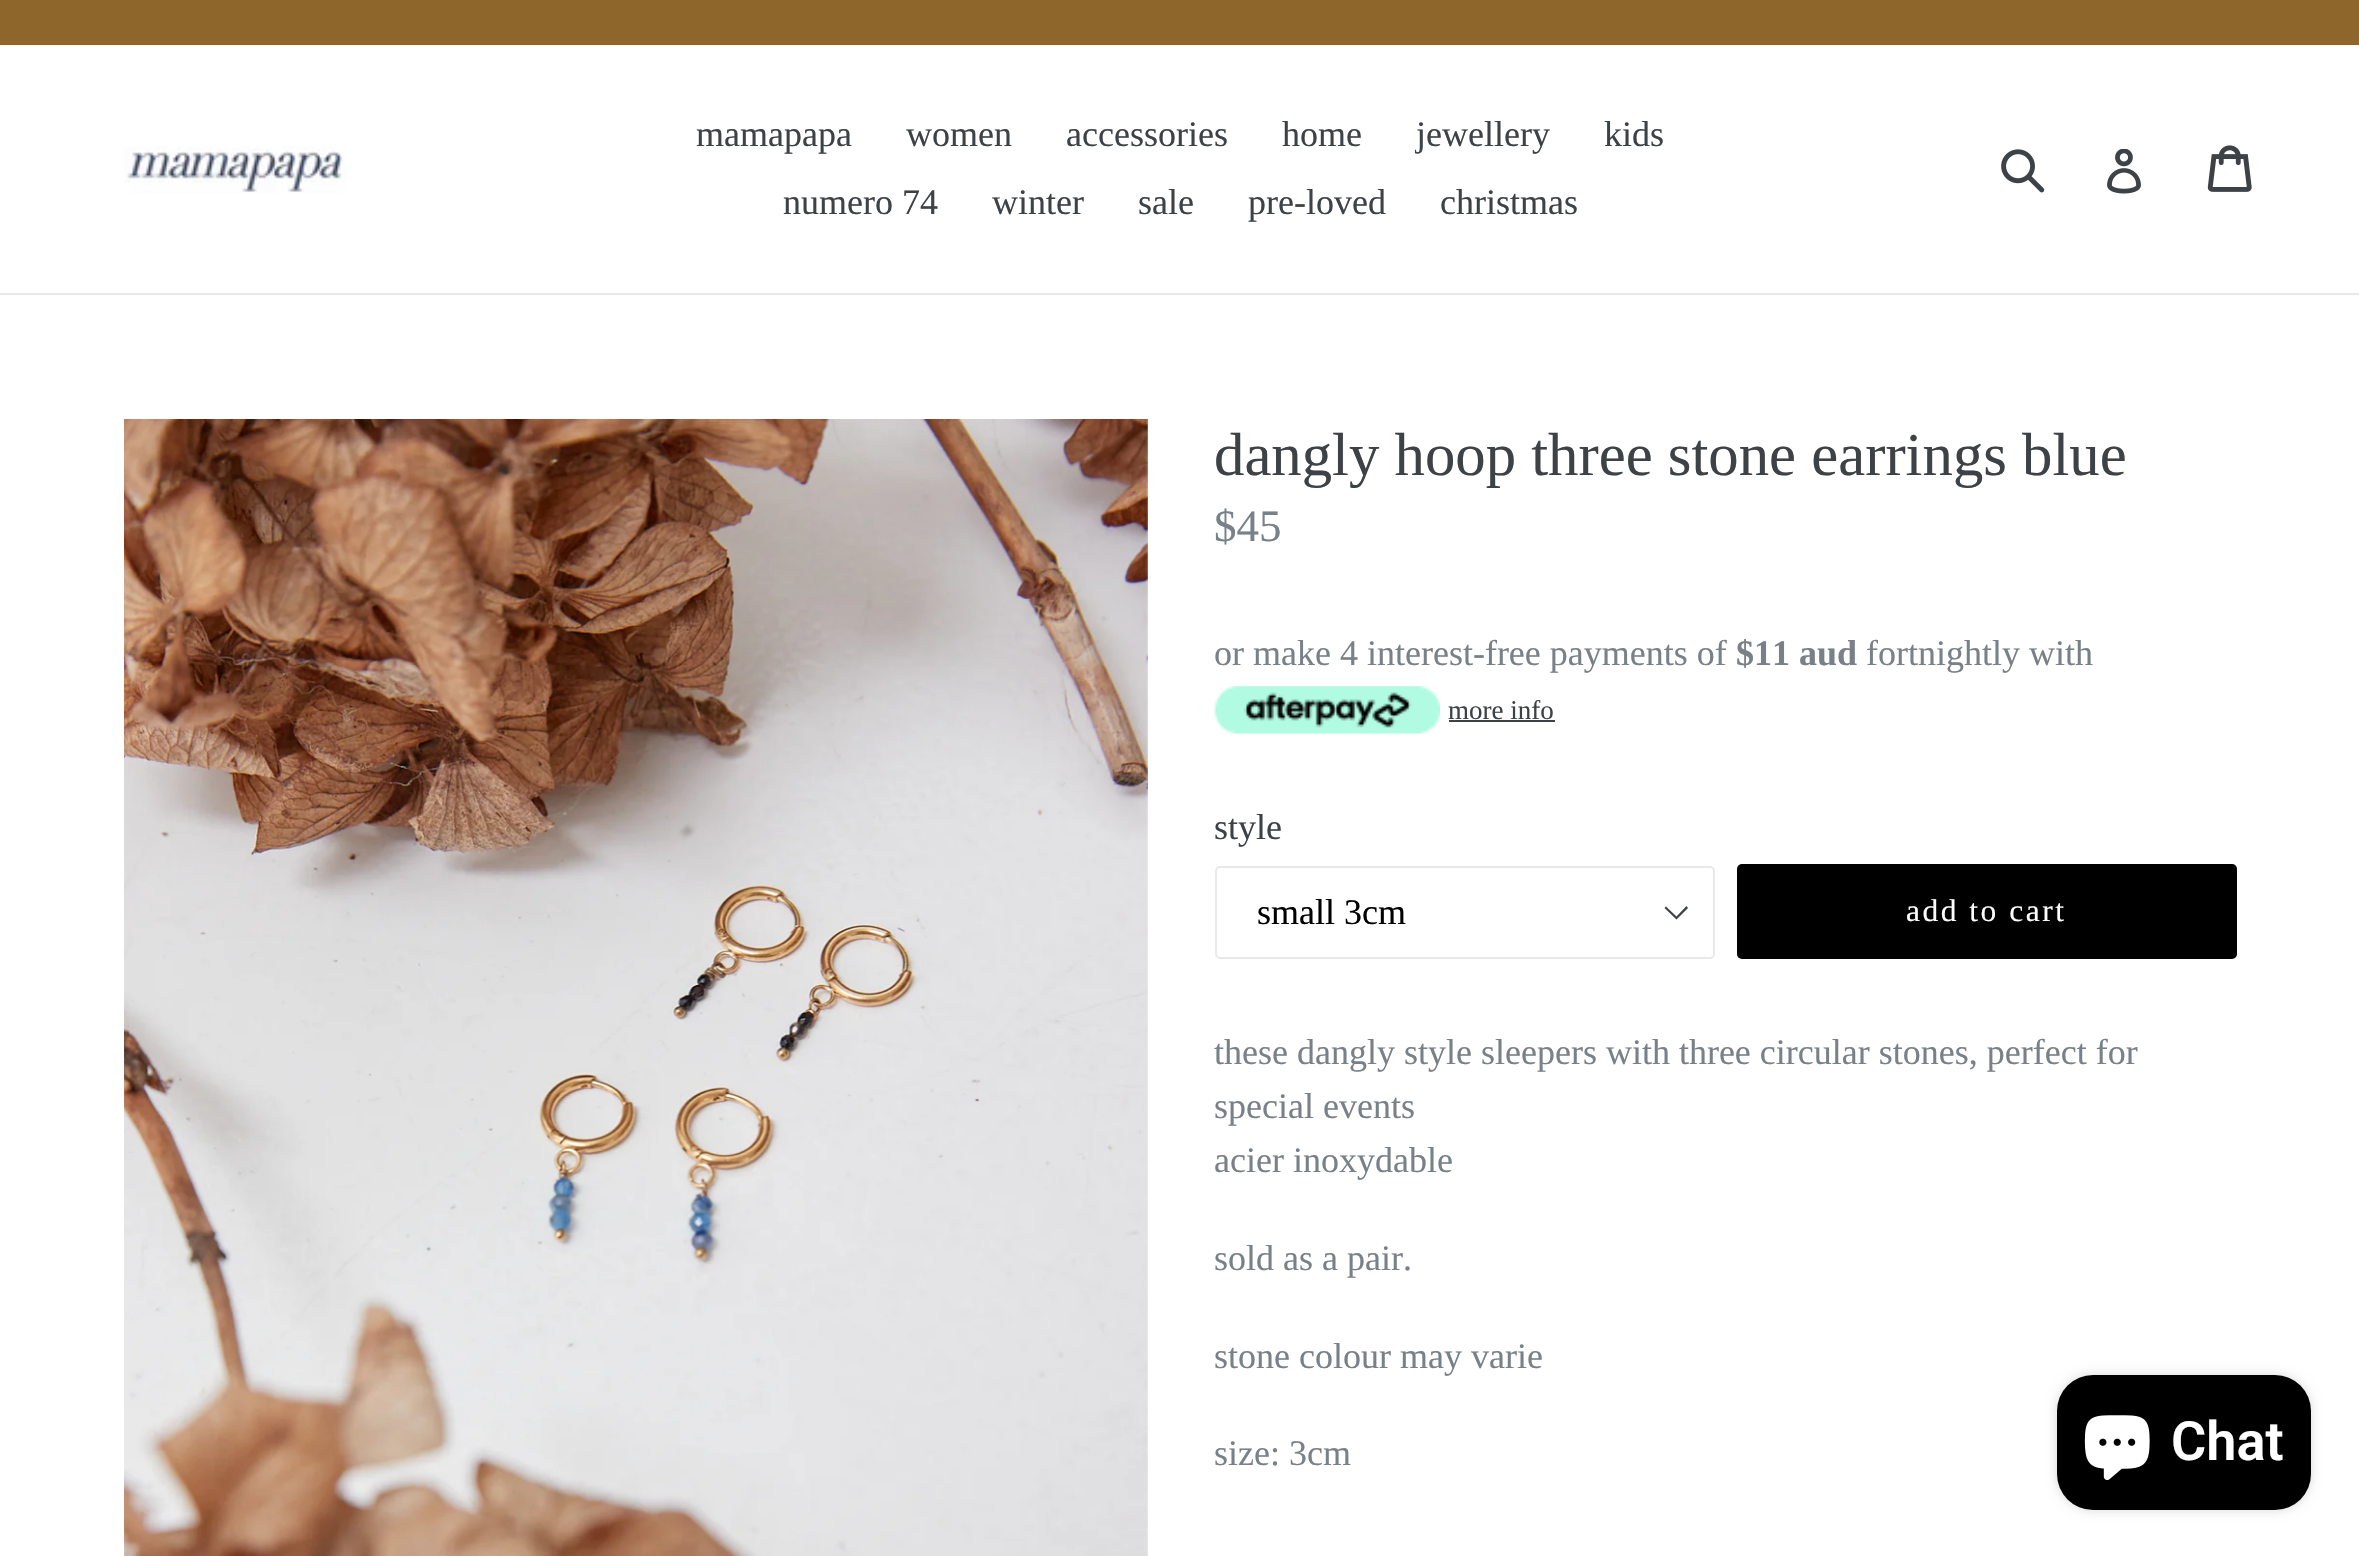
void draw(SkCanvas* canvas) {
	SkPaint paint;
	paint.setAntiAlias(true);
	auto spacedText = [&](const char* s, float x, float y, const SkFont& font, const SkPaint& ink, float letter, float word) {
		std::vector<SkGlyphID> glyphs(font.countText(s, strlen(s), SkTextEncoding::kUTF8));
		std::vector<float> xs(glyphs.size());
		font.textToGlyphs(s, strlen(s), SkTextEncoding::kUTF8, glyphs);
		font.getXPos(glyphs, xs, x);
		float extra = 0;
		for (size_t i = 0; i < glyphs.size(); i++) {
			xs[i] += extra;
			extra += letter + word * (glyphs[i] == font.unicharToGlyph(' '));
		}
		canvas->drawTextBlob(SkTextBlob::MakeFromPosHGlyphs(glyphs, xs, y, font), 0, 0, ink);
	};
	auto svgPath = [&](const char* data, bool evenOdd = false) {
		SkPath result = *SkParsePath::FromSVGString(data);
		if (evenOdd) result.setFillType(SkPathFillType::kEvenOdd);
		return result;
	};
	canvas->clear(0xffffffff);
	paint.setColor(0xff8e662b);
	canvas->drawRect(SkRect::MakeXYWH(0, 0, 2359, 45), paint);
	paint.setColor(0xffe8e9eb);
	canvas->drawRect(SkRect::MakeXYWH(0, 293, 2359, 2), paint);
	canvas->drawImageRect(SkImages::DeferredFromEncodedData(SkData::MakeFromFileName("img1.png")), SkRect::MakeXYWH(124, 146, 223, 47), SkSamplingOptions());
	SkFont f1(fontMgr->matchFamilyStyle("Liberation Serif", SkFontStyle::Normal()), 36);
	f1.setSubpixel(true);
	paint.setColor(0xff3d4246);
	canvas->drawString("mamapapa", 696, 146, f1, paint);
	canvas->drawString("women", 906, 146, f1, paint);
	canvas->drawString("accessories", 1066, 146, f1, paint);
	canvas->drawString("home", 1282, 146, f1, paint);
	canvas->drawString("jewellery", 1416, 146, f1, paint);
	canvas->drawString("kids", 1604, 146, f1, paint);
	canvas->drawString("numero 74", 783, 214, f1, paint);
	canvas->drawString("winter", 992, 214, f1, paint);
	canvas->drawString("sale", 1138, 214, f1, paint);
	canvas->drawString("pre-loved", 1248, 214, f1, paint);
	canvas->drawString("christmas", 1440, 214, f1, paint);
	canvas->drawImageRect(SkImages::DeferredFromEncodedData(SkData::MakeFromFileName("img2.png")), SkRect::MakeXYWH(2001, 149, 44, 44), SkSamplingOptions());
	canvas->drawImageRect(SkImages::DeferredFromEncodedData(SkData::MakeFromFileName("img3.png")), SkRect::MakeXYWH(2107, 149, 34, 45), SkSamplingOptions());
	canvas->drawImageRect(SkImages::DeferredFromEncodedData(SkData::MakeFromFileName("img4.png")), SkRect::MakeXYWH(2207, 145, 45, 47), SkSamplingOptions());
	canvas->drawImageRect(SkImages::DeferredFromEncodedData(SkData::MakeFromFileName("img5.png")), SkRect::MakeXYWH(124, 419, 1024, 1137), SkSamplingOptions());
	SkFont f2(fontMgr->matchFamilyStyle("Liberation Serif", SkFontStyle::Normal()), 60.75);
	f2.setSubpixel(true);
	canvas->drawString("dangly hoop three stone earrings blue", 1214, 475, f2, paint);
	SkFont f3(fontMgr->matchFamilyStyle("Liberation Serif", SkFontStyle::Normal()), 45);
	f3.setSubpixel(true);
	paint.setColor(0xff788188);
	canvas->drawString("$45", 1214, 541, f3, paint);
	canvas->drawString("or make 4 interest-free payments of", 1214, 665, f1, paint);
	SkFont f4(fontMgr->matchFamilyStyle("Liberation Serif", SkFontStyle::Bold()), 36);
	f4.setSubpixel(true);
	canvas->drawString("$11 aud", 1736, 665, f4, paint);
	canvas->drawString("fortnightly with", 1866, 665, f1, paint);
	canvas->drawImageRect(SkImages::DeferredFromEncodedData(SkData::MakeFromFileName("img6.png")), SkRect::MakeXYWH(1214, 686, 226, 49), SkSamplingOptions());
	SkFont f5(fontMgr->matchFamilyStyle("Liberation Serif", SkFontStyle::Normal()), 27);
	f5.setSubpixel(true);
	paint.setColor(0xff3d4246);
	canvas->drawString("more info", 1448, 719, f5, paint);
	canvas->drawRect(SkRect::MakeXYWH(1449, 720, 106, 2), paint);
	canvas->drawString("style", 1214, 839, f1, paint);
	canvas->drawPath(svgPath("M1676.5 919.5L1664.5 908L1666 906.5L1676.5 916.5L1686.5 906L1688 908Z"), paint);
	paint.setStroke(true);
	paint.setStrokeWidth(2);
	paint.setColor(0xffe8e9eb);
	canvas->drawRoundRect(SkRect::MakeXYWH(1216, 867, 498, 91), 4, 4, paint);
	paint.setStroke(false);
	paint.setColor(0xff000000);
	canvas->drawString("small 3cm", 1257, 924, f1, paint);
	canvas->drawRoundRect(SkRect::MakeXYWH(1737, 864, 500, 95), 5, 5, paint);
	SkFont f6(fontMgr->matchFamilyStyle("Liberation Serif", SkFontStyle::Normal()), 31.5);
	f6.setSubpixel(true);
	paint.setColor(0xffffffff);
	spacedText("add to cart", 1906, 921, f6, paint, 2.5, 0);
	paint.setColor(0xff788188);
	canvas->drawString("these dangly style sleepers with three circular stones, perfect for", 1214, 1064, f1, paint);
	canvas->drawString("special events", 1214, 1118, f1, paint);
	canvas->drawString("acier inoxydable", 1214, 1172, f1, paint);
	canvas->drawString("sold as a pair.", 1214, 1270, f1, paint);
	canvas->drawString("stone colour may varie", 1214, 1368, f1, paint);
	canvas->drawString("size: 3cm", 1214, 1465, f1, paint);
	paint.setColor(0x26000000);
	paint.setMaskFilter(SkMaskFilter::MakeBlur(kNormal_SkBlurStyle, 5.5));
	canvas->drawRoundRect(SkRect::MakeXYWH(2057, 1375, 254, 135), 36, 36, paint);
	paint.setMaskFilter(nullptr);
	paint.setColor(0xff000000);
	canvas->drawRoundRect(SkRect::MakeXYWH(2057, 1375, 254, 135), 36, 36, paint);
	canvas->drawImageRect(SkImages::DeferredFromEncodedData(SkData::MakeFromFileName("img7.png")), SkRect::MakeXYWH(2084, 1415, 66, 65), SkSamplingOptions());
	SkFont f7(fontMgr->matchFamilyStyle("Roboto", SkFontStyle(600, SkFontStyle::kNormal_Width, SkFontStyle::kUpright_Slant)), 54);
	f7.setSubpixel(true);
	paint.setColor(0xffffffff);
	canvas->drawString("Chat", 2171, 1460, f7, paint);
}
